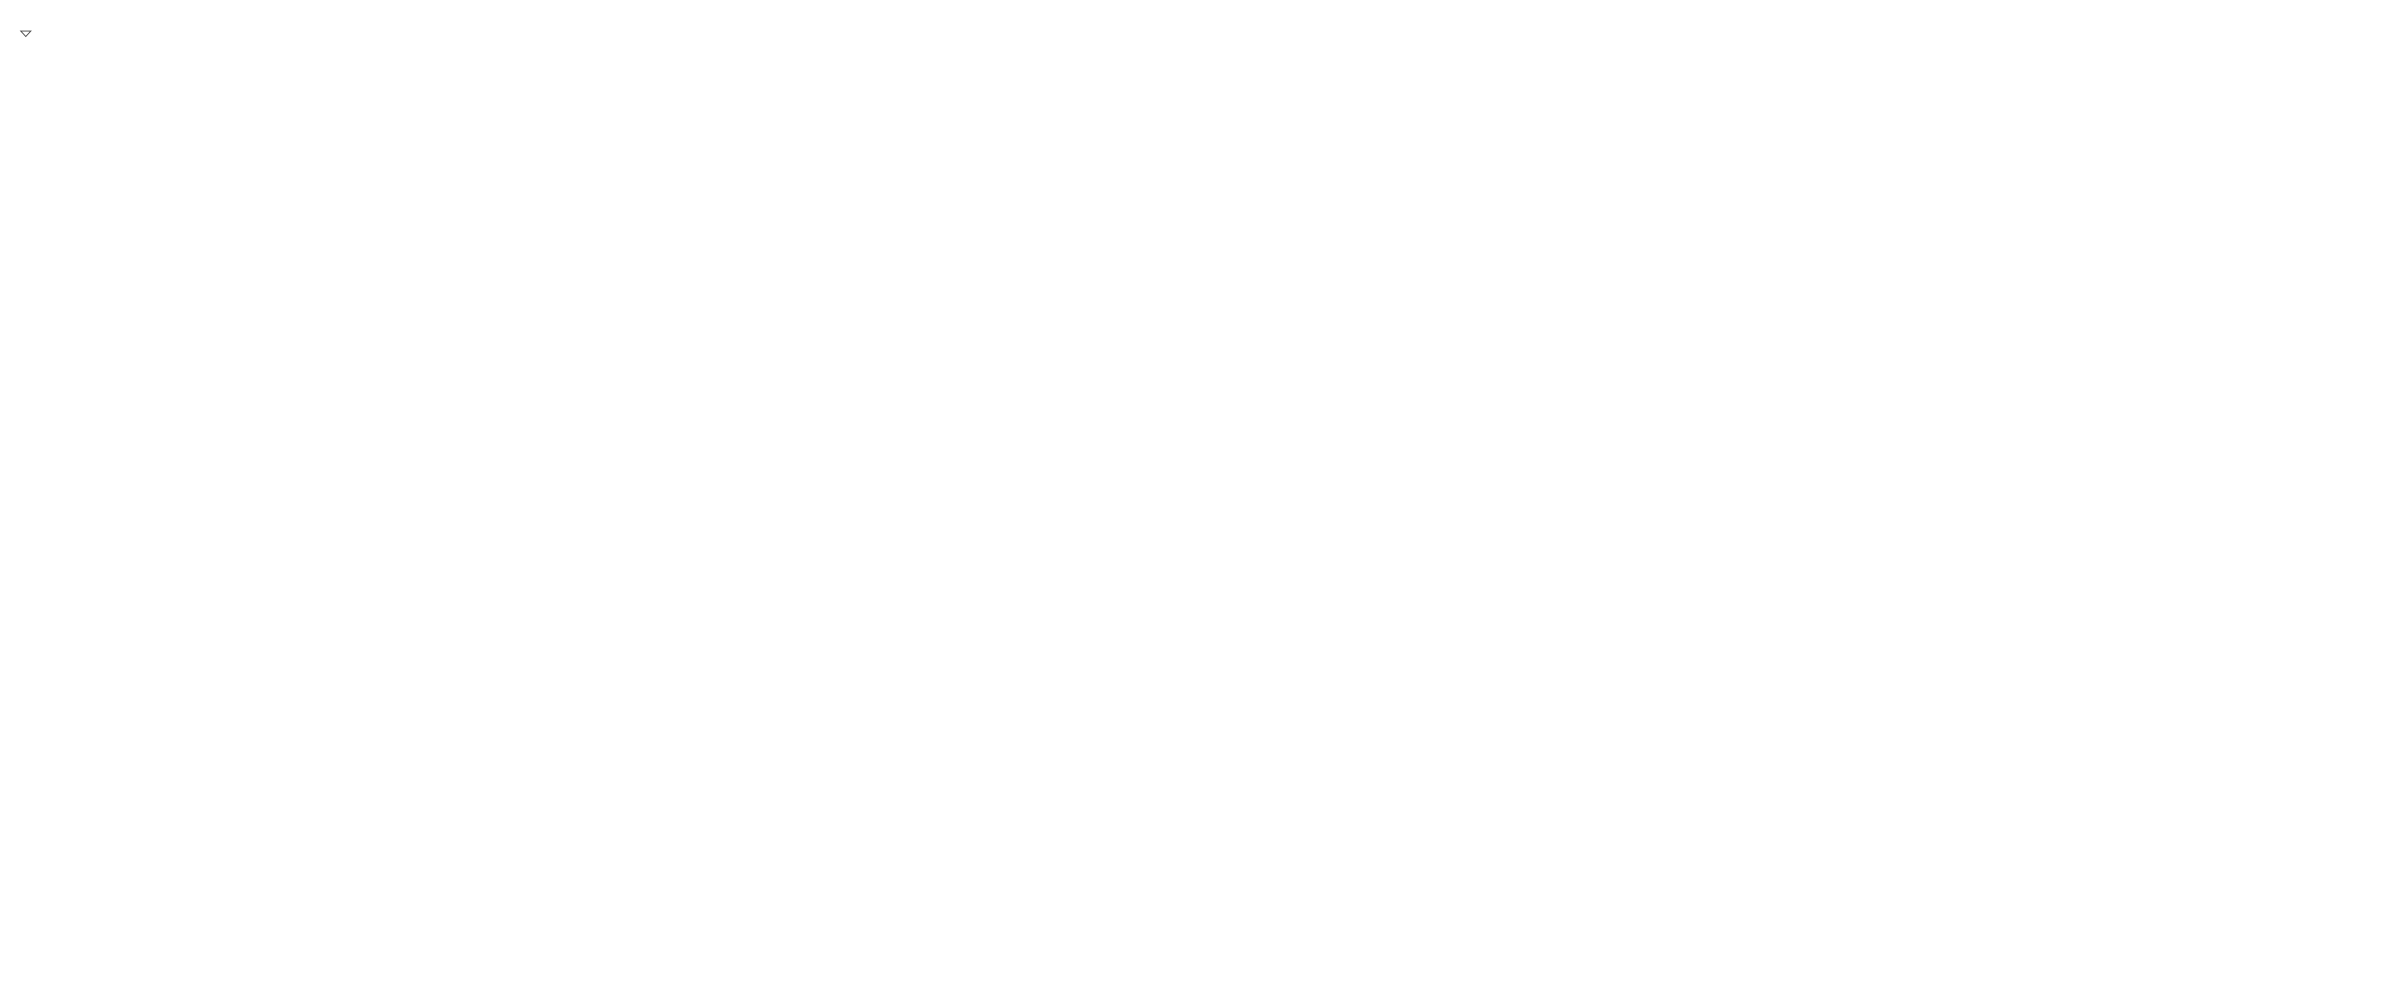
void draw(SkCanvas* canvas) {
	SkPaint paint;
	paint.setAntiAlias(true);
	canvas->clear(0xffffffff);
	canvas->drawImageRect(SkImages::DeferredFromEncodedData(SkData::MakeFromFileName("img1.png")), SkRect::MakeXYWH(19, 30, 13, 8), SkSamplingOptions());
}
